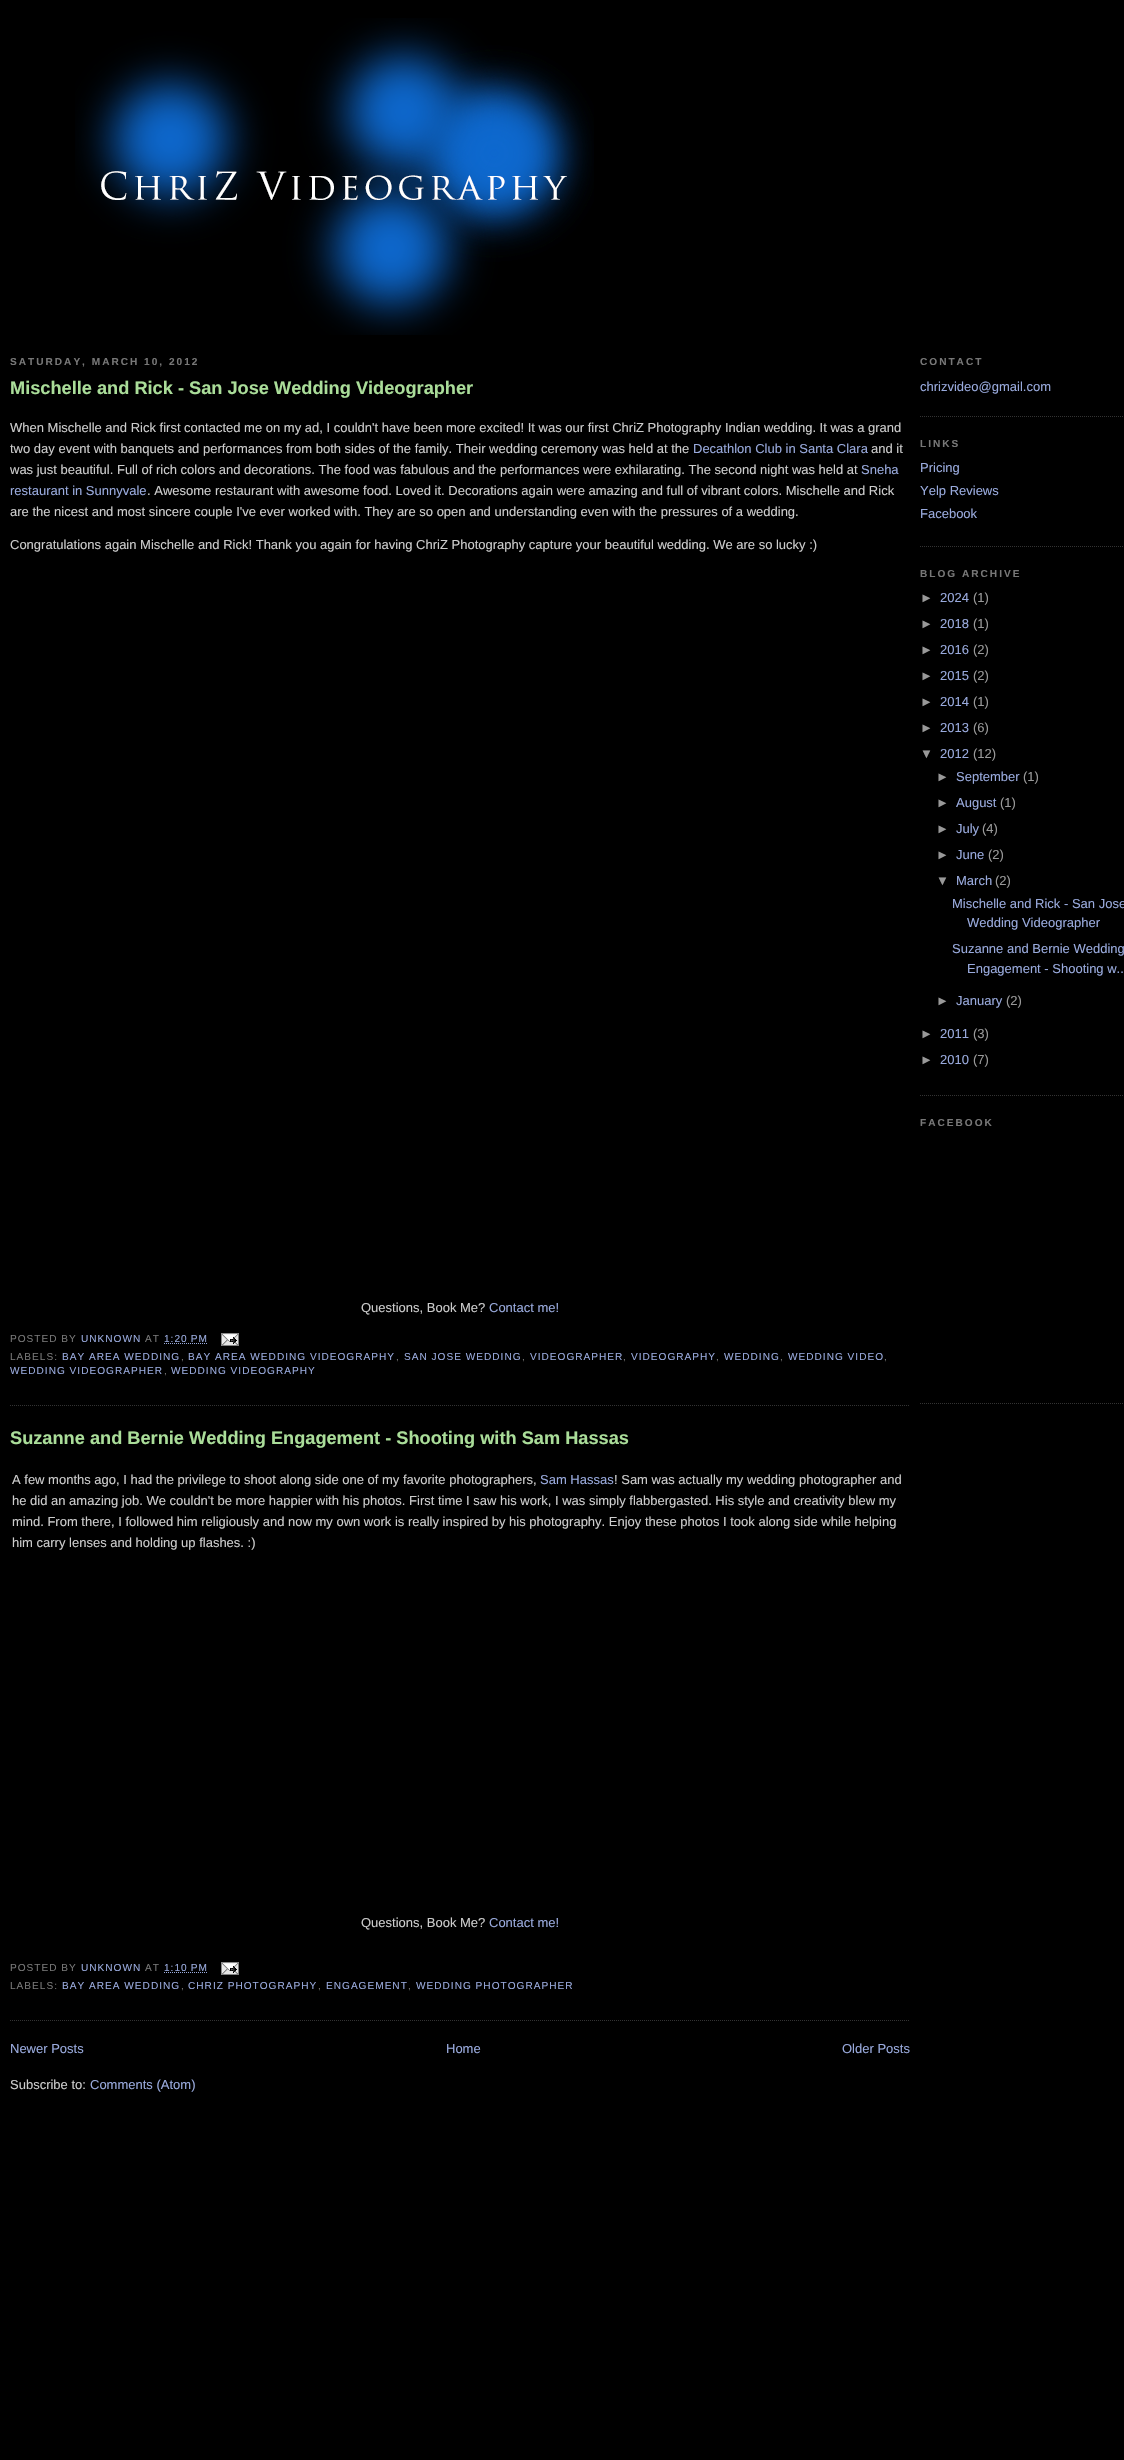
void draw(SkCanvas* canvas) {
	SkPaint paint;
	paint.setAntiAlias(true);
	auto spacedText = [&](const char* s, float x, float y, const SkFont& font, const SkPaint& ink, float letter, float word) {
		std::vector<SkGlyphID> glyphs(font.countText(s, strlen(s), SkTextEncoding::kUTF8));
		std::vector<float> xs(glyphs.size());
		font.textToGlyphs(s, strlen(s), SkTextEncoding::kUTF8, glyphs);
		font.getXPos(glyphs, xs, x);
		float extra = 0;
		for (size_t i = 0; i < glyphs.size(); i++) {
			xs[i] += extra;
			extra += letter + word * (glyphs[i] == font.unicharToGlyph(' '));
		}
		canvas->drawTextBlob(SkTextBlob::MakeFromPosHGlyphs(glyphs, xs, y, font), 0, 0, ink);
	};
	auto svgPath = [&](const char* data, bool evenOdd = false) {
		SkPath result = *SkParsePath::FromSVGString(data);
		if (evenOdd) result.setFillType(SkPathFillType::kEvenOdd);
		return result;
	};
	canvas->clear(0xff000000);
	canvas->drawImageRect(SkImages::DeferredFromEncodedData(SkData::MakeFromFileName("img1.png")), SkRect::MakeXYWH(75, 18, 519, 317), SkSamplingOptions());
	SkFont f1(fontMgr->matchFamilyStyle("Liberation Sans", SkFontStyle::Bold()), 10.1);
	f1.setSubpixel(true);
	paint.setColor(0xff777777);
	spacedText("SATURDAY, MARCH 10, 2012", 10, 365, f1, paint, 2, 0);
	paint.setStroke(true);
	paint.setStrokeWidth(1);
	paint.setColor(0xff333333);
	paint.setPathEffect(SkDashPathEffect::Make({{1, 1}}, 0));
	canvas->drawPath(svgPath("M10 1405.5H910"), paint);
	paint.setPathEffect(nullptr);
	SkFont f2(fontMgr->matchFamilyStyle("Liberation Sans", SkFontStyle::Bold()), 18.2);
	f2.setSubpixel(true);
	paint.setStroke(false);
	paint.setColor(0xffaadd99);
	canvas->drawString("Mischelle and Rick - San Jose Wedding Videographer", 10, 394, f2, paint);
	SkFont f3(fontMgr->matchFamilyStyle("Liberation Sans", SkFontStyle::Normal()), 13);
	f3.setSubpixel(true);
	paint.setColor(0xffcccccc);
	canvas->drawString("When Mischelle and Rick first contacted me on my ad, I couldn't have been more excited! It was our first ChriZ Photography Indian wedding. It was a grand", 10, 432, f3, paint);
	canvas->drawString("two day event with banquets and performances from both sides of the family. Their wedding ceremony was held at the", 10, 453, f3, paint);
	paint.setColor(0xff99aadd);
	canvas->drawString("Decathlon Club in Santa Clara", 693, 453, f3, paint);
	paint.setColor(0xffcccccc);
	canvas->drawString("and it", 871, 453, f3, paint);
	canvas->drawString("was just beautiful. Full of rich colors and decorations. The food was fabulous and the performances were exhilarating. The second night was held at", 10, 474, f3, paint);
	paint.setColor(0xff99aadd);
	canvas->drawString("Sneha", 861, 474, f3, paint);
	canvas->drawString("restaurant in Sunnyvale", 10, 495, f3, paint);
	paint.setColor(0xffcccccc);
	canvas->drawString(". Awesome restaurant with awesome food. Loved it. Decorations again were amazing and full of vibrant colors. Mischelle and Rick", 147, 495, f3, paint);
	canvas->drawString("are the nicest and most sincere couple I've ever worked with. They are so open and understanding even with the pressures of a wedding.", 10, 516, f3, paint);
	canvas->drawString("Congratulations again Mischelle and Rick! Thank you again for having ChriZ Photography capture your beautiful wedding. We are so lucky :)", 10, 549, f3, paint);
	canvas->drawString("Questions, Book Me?", 361, 1312, f3, paint);
	paint.setColor(0xff99aadd);
	canvas->drawString("Contact me!", 489, 1312, f3, paint);
	SkFont f4(fontMgr->matchFamilyStyle("Liberation Sans", SkFontStyle::Normal()), 10.1);
	f4.setSubpixel(true);
	paint.setColor(0xff777777);
	spacedText("POSTED BY", 10, 1342, f4, paint, 1, 0);
	paint.setColor(0xff99aadd);
	spacedText("UNKNOWN", 81, 1342, f4, paint, 1, 0);
	paint.setColor(0xff777777);
	spacedText("AT", 145, 1342, f4, paint, 1, 0);
	paint.setColor(0xff99aadd);
	spacedText("1:20 PM", 164, 1342, f4, paint, 1, 0);
	paint.setStroke(true);
	paint.setPathEffect(SkDashPathEffect::Make({{1, 1}}, 0));
	canvas->drawPath(svgPath("M164 1343.5H208"), paint);
	paint.setPathEffect(nullptr);
	canvas->drawImageRect(SkImages::DeferredFromEncodedData(SkData::MakeFromFileName("img2.png")), SkRect::MakeXYWH(221, 1333, 18, 13), SkSamplingOptions());
	paint.setStroke(false);
	paint.setColor(0xff777777);
	spacedText("LABELS:", 10, 1360, f4, paint, 1, 0);
	paint.setColor(0xff99aadd);
	spacedText("BAY AREA WEDDING", 62, 1360, f4, paint, 1, 0);
	paint.setColor(0xff777777);
	spacedText(",", 181, 1360, f4, paint, 1, 0);
	paint.setColor(0xff99aadd);
	spacedText("BAY AREA WEDDING VIDEOGRAPHY", 188, 1360, f4, paint, 1, 0);
	paint.setColor(0xff777777);
	spacedText(",", 396, 1360, f4, paint, 1, 0);
	paint.setColor(0xff99aadd);
	spacedText("SAN JOSE WEDDING", 404, 1360, f4, paint, 1, 0);
	paint.setColor(0xff777777);
	spacedText(",", 522, 1360, f4, paint, 1, 0);
	paint.setColor(0xff99aadd);
	spacedText("VIDEOGRAPHER", 530, 1360, f4, paint, 1, 0);
	paint.setColor(0xff777777);
	spacedText(",", 623, 1360, f4, paint, 1, 0);
	paint.setColor(0xff99aadd);
	spacedText("VIDEOGRAPHY", 631, 1360, f4, paint, 1, 0);
	paint.setColor(0xff777777);
	spacedText(",", 716, 1360, f4, paint, 1, 0);
	paint.setColor(0xff99aadd);
	spacedText("WEDDING", 724, 1360, f4, paint, 1, 0);
	paint.setColor(0xff777777);
	spacedText(",", 780, 1360, f4, paint, 1, 0);
	paint.setColor(0xff99aadd);
	spacedText("WEDDING VIDEO", 788, 1360, f4, paint, 1, 0);
	paint.setColor(0xff777777);
	spacedText(",", 884, 1360, f4, paint, 1, 0);
	paint.setColor(0xff99aadd);
	spacedText("WEDDING VIDEOGRAPHER", 10, 1374, f4, paint, 1, 0);
	paint.setColor(0xff777777);
	spacedText(",", 164, 1374, f4, paint, 1, 0);
	paint.setColor(0xff99aadd);
	spacedText("WEDDING VIDEOGRAPHY", 171, 1374, f4, paint, 1, 0);
	paint.setStroke(true);
	paint.setColor(0xff333333);
	paint.setPathEffect(SkDashPathEffect::Make({{1, 1}}, 0));
	canvas->drawPath(svgPath("M10 2020.5H910"), paint);
	paint.setPathEffect(nullptr);
	paint.setStroke(false);
	paint.setColor(0xffaadd99);
	canvas->drawString("Suzanne and Bernie Wedding Engagement - Shooting with Sam Hassas", 10, 1444, f2, paint);
	paint.setColor(0xffcccccc);
	canvas->drawString("A few months ago, I had the privilege to shoot along side one of my favorite photographers,", 12, 1484, f3, paint);
	paint.setColor(0xff99aadd);
	canvas->drawString("Sam Hassas", 540, 1484, f3, paint);
	paint.setColor(0xffcccccc);
	canvas->drawString("! Sam was actually my wedding photographer and", 614, 1484, f3, paint);
	canvas->drawString("he did an amazing job. We couldn't be more happier with his photos. First time I saw his work, I was simply flabbergasted. His style and creativity blew my", 12, 1505, f3, paint);
	canvas->drawString("mind. From there, I followed him religiously and now my own work is really inspired by his photography. Enjoy these photos I took along side while helping", 12, 1526, f3, paint);
	canvas->drawString("him carry lenses and holding up flashes. :)", 12, 1547, f3, paint);
	canvas->drawString("Questions, Book Me?", 361, 1927, f3, paint);
	paint.setColor(0xff99aadd);
	canvas->drawString("Contact me!", 489, 1927, f3, paint);
	paint.setColor(0xff777777);
	spacedText("POSTED BY", 10, 1971, f4, paint, 1, 0);
	paint.setColor(0xff99aadd);
	spacedText("UNKNOWN", 81, 1971, f4, paint, 1, 0);
	paint.setColor(0xff777777);
	spacedText("AT", 145, 1971, f4, paint, 1, 0);
	paint.setColor(0xff99aadd);
	spacedText("1:10 PM", 164, 1971, f4, paint, 1, 0);
	paint.setStroke(true);
	paint.setPathEffect(SkDashPathEffect::Make({{1, 1}}, 0));
	canvas->drawPath(svgPath("M164 1972.5H208"), paint);
	paint.setPathEffect(nullptr);
	canvas->drawImageRect(SkImages::DeferredFromEncodedData(SkData::MakeFromFileName("img2.png")), SkRect::MakeXYWH(221, 1962, 18, 13), SkSamplingOptions());
	paint.setStroke(false);
	paint.setColor(0xff777777);
	spacedText("LABELS:", 10, 1989, f4, paint, 1, 0);
	paint.setColor(0xff99aadd);
	spacedText("BAY AREA WEDDING", 62, 1989, f4, paint, 1, 0);
	paint.setColor(0xff777777);
	spacedText(",", 181, 1989, f4, paint, 1, 0);
	paint.setColor(0xff99aadd);
	spacedText("CHRIZ PHOTOGRAPHY", 188, 1989, f4, paint, 1, 0);
	paint.setColor(0xff777777);
	spacedText(",", 318, 1989, f4, paint, 1, 0);
	paint.setColor(0xff99aadd);
	spacedText("ENGAGEMENT", 326, 1989, f4, paint, 1, 0);
	paint.setColor(0xff777777);
	spacedText(",", 408, 1989, f4, paint, 1, 0);
	paint.setColor(0xff99aadd);
	spacedText("WEDDING PHOTOGRAPHER", 416, 1989, f4, paint, 1, 0);
	canvas->drawString("Newer Posts", 10, 2053, f3, paint);
	canvas->drawString("Home", 446, 2053, f3, paint);
	canvas->drawString("Older Posts", 842, 2053, f3, paint);
	paint.setColor(0xffcccccc);
	canvas->drawString("Subscribe to:", 10, 2089, f3, paint);
	paint.setColor(0xff99aadd);
	canvas->drawString("Comments (Atom)", 90, 2089, f3, paint);
	paint.setStroke(true);
	paint.setColor(0xff333333);
	paint.setPathEffect(SkDashPathEffect::Make({{1, 1}}, 0));
	canvas->drawPath(svgPath("M920 416.5H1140"), paint);
	paint.setPathEffect(nullptr);
	paint.setStroke(false);
	paint.setColor(0xff777777);
	spacedText("CONTACT", 920, 365, f1, paint, 2, 0);
	paint.setColor(0xff99aadd);
	canvas->drawString("chrizvideo@gmail.com", 920, 391, f3, paint);
	paint.setStroke(true);
	paint.setColor(0xff333333);
	paint.setPathEffect(SkDashPathEffect::Make({{1, 1}}, 0));
	canvas->drawPath(svgPath("M920 546.5H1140"), paint);
	paint.setPathEffect(nullptr);
	paint.setStroke(false);
	paint.setColor(0xff777777);
	spacedText("LINKS", 920, 447, f1, paint, 2, 0);
	paint.setColor(0xff99aadd);
	canvas->drawString("Pricing", 920, 472, f3, paint);
	canvas->drawString("Yelp Reviews", 920, 495, f3, paint);
	canvas->drawString("Facebook", 920, 518, f3, paint);
	paint.setStroke(true);
	paint.setColor(0xff333333);
	paint.setPathEffect(SkDashPathEffect::Make({{1, 1}}, 0));
	canvas->drawPath(svgPath("M920 1095.5H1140"), paint);
	paint.setPathEffect(nullptr);
	paint.setStroke(false);
	paint.setColor(0xff777777);
	spacedText("BLOG ARCHIVE", 920, 577, f1, paint, 2, 0);
	paint.setColor(0xff999999);
	canvas->drawString("►", 920, 602, f3, paint);
	paint.setColor(0xff99aadd);
	canvas->drawString("2024", 940, 602, f3, paint);
	paint.setColor(0xff999999);
	canvas->drawString("(1)", 973, 602, f3, paint);
	canvas->drawString("►", 920, 628, f3, paint);
	paint.setColor(0xff99aadd);
	canvas->drawString("2018", 940, 628, f3, paint);
	paint.setColor(0xff999999);
	canvas->drawString("(1)", 973, 628, f3, paint);
	canvas->drawString("►", 920, 654, f3, paint);
	paint.setColor(0xff99aadd);
	canvas->drawString("2016", 940, 654, f3, paint);
	paint.setColor(0xff999999);
	canvas->drawString("(2)", 973, 654, f3, paint);
	canvas->drawString("►", 920, 680, f3, paint);
	paint.setColor(0xff99aadd);
	canvas->drawString("2015", 940, 680, f3, paint);
	paint.setColor(0xff999999);
	canvas->drawString("(2)", 973, 680, f3, paint);
	canvas->drawString("►", 920, 706, f3, paint);
	paint.setColor(0xff99aadd);
	canvas->drawString("2014", 940, 706, f3, paint);
	paint.setColor(0xff999999);
	canvas->drawString("(1)", 973, 706, f3, paint);
	canvas->drawString("►", 920, 732, f3, paint);
	paint.setColor(0xff99aadd);
	canvas->drawString("2013", 940, 732, f3, paint);
	paint.setColor(0xff999999);
	canvas->drawString("(6)", 973, 732, f3, paint);
	canvas->drawString("▼", 920, 758, f3, paint);
	paint.setColor(0xff99aadd);
	canvas->drawString("2012", 940, 758, f3, paint);
	paint.setColor(0xff999999);
	canvas->drawString("(12)", 973, 758, f3, paint);
	canvas->drawString("►", 936, 781, f3, paint);
	paint.setColor(0xff99aadd);
	canvas->drawString("September", 956, 781, f3, paint);
	paint.setColor(0xff999999);
	canvas->drawString("(1)", 1023, 781, f3, paint);
	canvas->drawString("►", 936, 807, f3, paint);
	paint.setColor(0xff99aadd);
	canvas->drawString("August", 956, 807, f3, paint);
	paint.setColor(0xff999999);
	canvas->drawString("(1)", 1000, 807, f3, paint);
	canvas->drawString("►", 936, 833, f3, paint);
	paint.setColor(0xff99aadd);
	canvas->drawString("July", 956, 833, f3, paint);
	paint.setColor(0xff999999);
	canvas->drawString("(4)", 982, 833, f3, paint);
	canvas->drawString("►", 936, 859, f3, paint);
	paint.setColor(0xff99aadd);
	canvas->drawString("June", 956, 859, f3, paint);
	paint.setColor(0xff999999);
	canvas->drawString("(2)", 988, 859, f3, paint);
	canvas->drawString("▼", 936, 885, f3, paint);
	paint.setColor(0xff99aadd);
	canvas->drawString("March", 956, 885, f3, paint);
	paint.setColor(0xff999999);
	canvas->drawString("(2)", 995, 885, f3, paint);
	paint.setColor(0xff99aadd);
	canvas->drawString("Mischelle and Rick - San Jose", 952, 908, f3, paint);
	canvas->drawString("Wedding Videographer", 967, 927, f3, paint);
	canvas->drawString("Suzanne and Bernie Wedding", 952, 953, f3, paint);
	canvas->drawString("Engagement - Shooting w..", 967, 973, f3, paint);
	paint.setColor(0xff999999);
	canvas->drawString("►", 936, 1005, f3, paint);
	paint.setColor(0xff99aadd);
	canvas->drawString("January", 956, 1005, f3, paint);
	paint.setColor(0xff999999);
	canvas->drawString("(2)", 1006, 1005, f3, paint);
	canvas->drawString("►", 920, 1038, f3, paint);
	paint.setColor(0xff99aadd);
	canvas->drawString("2011", 940, 1038, f3, paint);
	paint.setColor(0xff999999);
	canvas->drawString("(3)", 973, 1038, f3, paint);
	canvas->drawString("►", 920, 1064, f3, paint);
	paint.setColor(0xff99aadd);
	canvas->drawString("2010", 940, 1064, f3, paint);
	paint.setColor(0xff999999);
	canvas->drawString("(7)", 973, 1064, f3, paint);
	paint.setStroke(true);
	paint.setColor(0xff333333);
	paint.setPathEffect(SkDashPathEffect::Make({{1, 1}}, 0));
	canvas->drawPath(svgPath("M920 1403.5H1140"), paint);
	paint.setPathEffect(nullptr);
	paint.setStroke(false);
	paint.setColor(0xff777777);
	spacedText("FACEBOOK", 920, 1126, f1, paint, 2, 0);
}
